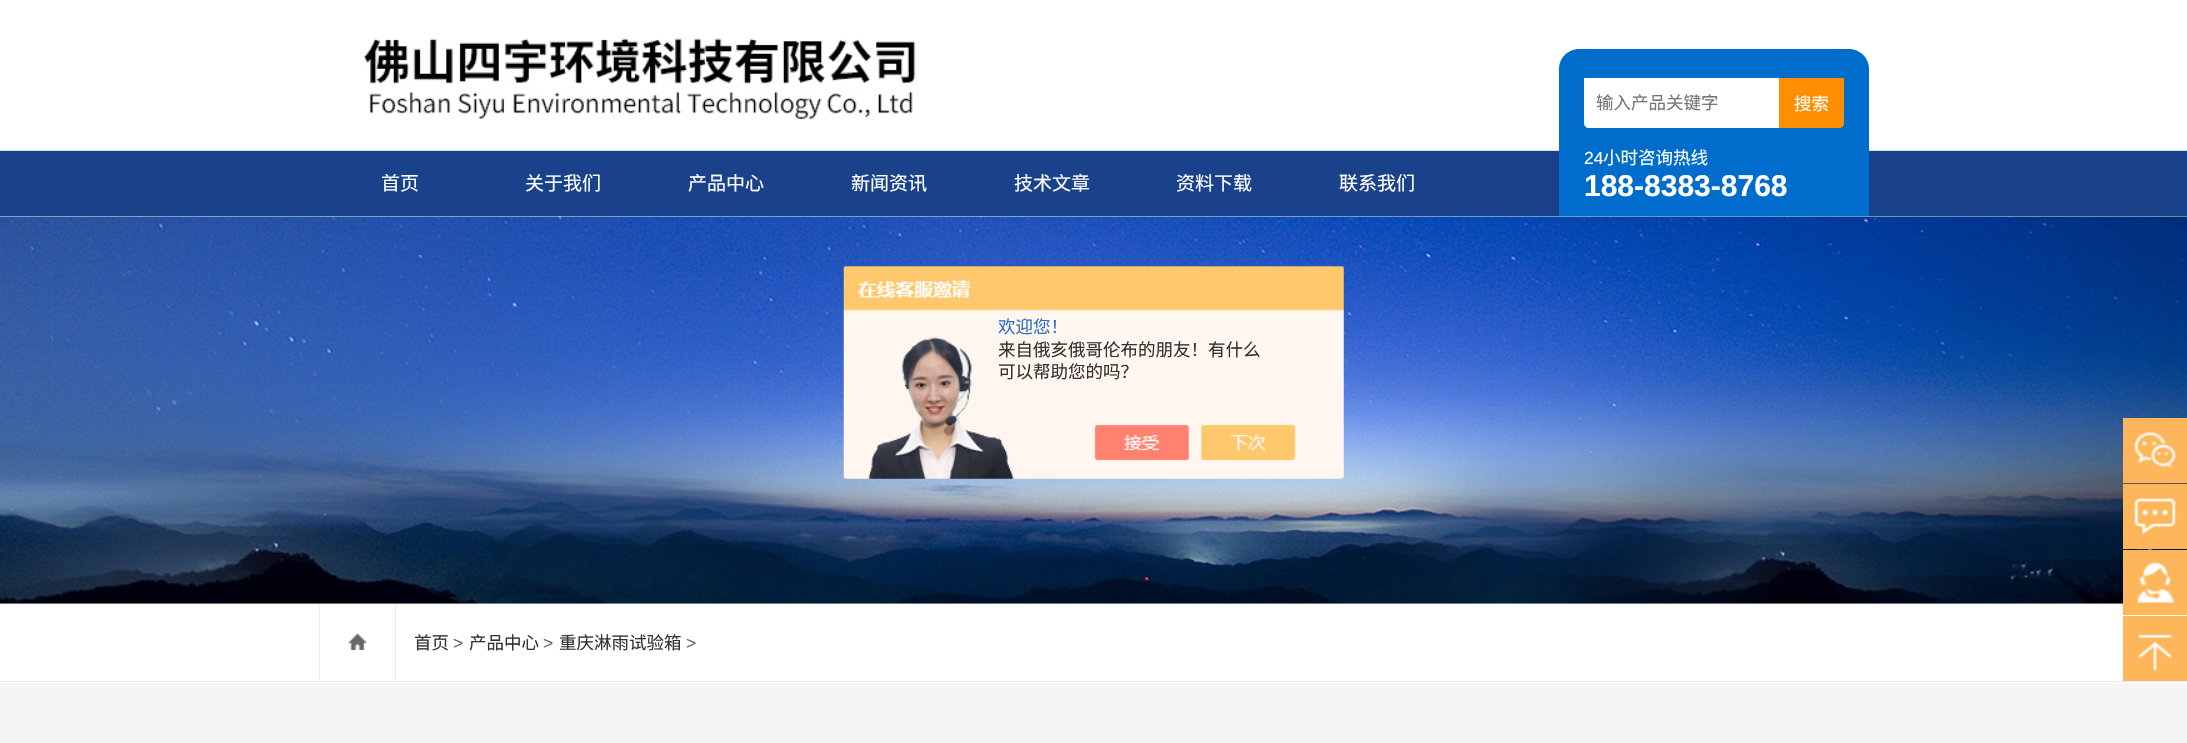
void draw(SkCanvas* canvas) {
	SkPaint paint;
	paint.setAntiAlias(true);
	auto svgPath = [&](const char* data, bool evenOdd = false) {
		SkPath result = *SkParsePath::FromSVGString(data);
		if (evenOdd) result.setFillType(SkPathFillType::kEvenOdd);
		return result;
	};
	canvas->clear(0xffffffff);
	paint.setColor(0xff1a428b);
	canvas->drawRect(SkRect::MakeXYWH(0, 151, 2187, 65), paint);
	SkFont f1(fontMgr->matchFamilyStyle("Noto Sans CJK SC", SkFontStyle::Normal()), 19);
	f1.setSubpixel(true);
	paint.setColor(0xffffffff);
	canvas->drawString("首页", 381, 190, f1, paint);
	canvas->drawString("关于我们", 525, 190, f1, paint);
	canvas->drawString("产品中心", 688, 190, f1, paint);
	canvas->drawString("新闻资讯", 851, 190, f1, paint);
	canvas->drawString("技术文章", 1014, 190, f1, paint);
	canvas->drawString("资料下载", 1176, 190, f1, paint);
	canvas->drawString("联系我们", 1339, 190, f1, paint);
	paint.setColor(0xffdedede);
	canvas->drawRect(SkRect::MakeXYWH(0, 150, 2187, 1), paint);
	canvas->drawImageRect(SkImages::DeferredFromEncodedData(SkData::MakeFromFileName("img1.png")), SkRect::MakeXYWH(363, 38, 553, 82), SkSamplingOptions());
	paint.setColor(0xff006ccc);
	canvas->drawPath(svgPath("M1579 49H1849C1860 49 1869 58 1869 69V216H1559V69C1559 58 1568 49 1579 49Z"), paint);
	paint.setColor(0xffffffff);
	canvas->drawPath(svgPath("M1584 78H1779V128H1589C1586 128 1584 126 1584 123Z"), paint);
	SkFont f2(fontMgr->matchFamilyStyle("Noto Sans CJK SC", SkFontStyle::Normal()), 17.5);
	f2.setSubpixel(true);
	paint.setColor(0xff757575);
	canvas->drawString("输入产品关键字", 1596, 109, f2, paint);
	paint.setColor(0xffff8e00);
	canvas->drawPath(svgPath("M1779 78H1844V123C1844 126 1842 128 1839 128H1779Z"), paint);
	paint.setColor(0xffffffff);
	canvas->drawString("搜索", 1794, 110, f2, paint);
	SkFont f3(fontMgr->matchFamilyStyle("Liberation Sans", SkFontStyle::Normal()), 17.5);
	f3.setSubpixel(true);
	canvas->drawString("24", 1584, 164, f3, paint);
	canvas->drawString("小时咨询热线", 1603, 164, f2, paint);
	SkFont f4(fontMgr->matchFamilyStyle("Liberation Sans", SkFontStyle::Bold()), 30);
	f4.setSubpixel(true);
	canvas->drawString("188-8383-8768", 1584, 196, f4, paint);
	canvas->drawImageRect(SkImages::DeferredFromEncodedData(SkData::MakeFromFileName("img2.png")), SkRect::MakeXYWH(0, 216, 2187, 388), SkSamplingOptions());
	canvas->drawImageRect(SkImages::DeferredFromEncodedData(SkData::MakeFromFileName("img3.png")), SkRect::MakeXYWH(843, 266, 501, 213), SkSamplingOptions());
	paint.setColor(0xff2e6ec6);
	canvas->drawString("欢迎您！", 998, 333, f2, paint);
	paint.setColor(0xff333333);
	canvas->drawString("来自俄亥俄哥伦布的朋友！有什么", 998, 356, f2, paint);
	canvas->drawString("可以帮助您的吗？", 998, 378, f2, paint);
	paint.setColor(0xfff5f5f5);
	canvas->drawRect(SkRect::MakeXYWH(0, 683, 2187, 60), paint);
	paint.setColor(0xffeaeaea);
	canvas->drawRect(SkRect::MakeXYWH(0, 681, 2187, 1), paint);
	canvas->drawImageRect(SkImages::DeferredFromEncodedData(SkData::MakeFromFileName("img4.png")), SkRect::MakeXYWH(348, 633, 19, 17), SkSamplingOptions());
	canvas->drawRect(SkRect::MakeXYWH(395, 604, 1, 76), paint);
	canvas->drawRect(SkRect::MakeXYWH(319, 604, 1, 76), paint);
	paint.setColor(0xff333333);
	canvas->drawString("首页", 414, 649, f2, paint);
	paint.setColor(0xff666666);
	canvas->drawString(">", 453, 649, f3, paint);
	paint.setColor(0xff333333);
	canvas->drawString("产品中心", 469, 649, f2, paint);
	paint.setColor(0xff666666);
	canvas->drawString(">", 543, 649, f3, paint);
	paint.setColor(0xff333333);
	canvas->drawString("重庆淋雨试验箱", 559, 649, f2, paint);
	paint.setColor(0xff666666);
	canvas->drawString(">", 686, 649, f3, paint);
	paint.setColor(0xfffeb65b);
	canvas->drawRect(SkRect::MakeXYWH(2123, 418, 64, 65), paint);
	canvas->drawImageRect(SkImages::DeferredFromEncodedData(SkData::MakeFromFileName("img5.png")), SkRect::MakeXYWH(2134, 431, 42, 37), SkSamplingOptions());
	canvas->drawRect(SkRect::MakeXYWH(2123, 484, 64, 65), paint);
	canvas->drawImageRect(SkImages::DeferredFromEncodedData(SkData::MakeFromFileName("img6.png")), SkRect::MakeXYWH(2134, 498, 49, 37), SkSamplingOptions());
	canvas->drawRect(SkRect::MakeXYWH(2123, 550, 64, 65), paint);
	canvas->drawImageRect(SkImages::DeferredFromEncodedData(SkData::MakeFromFileName("img7.png")), SkRect::MakeXYWH(2137, 562, 38, 42), SkSamplingOptions());
	canvas->drawRect(SkRect::MakeXYWH(2123, 616, 64, 65), paint);
	canvas->drawImageRect(SkImages::DeferredFromEncodedData(SkData::MakeFromFileName("img8.png")), SkRect::MakeXYWH(2138, 634, 34, 37), SkSamplingOptions());
}
